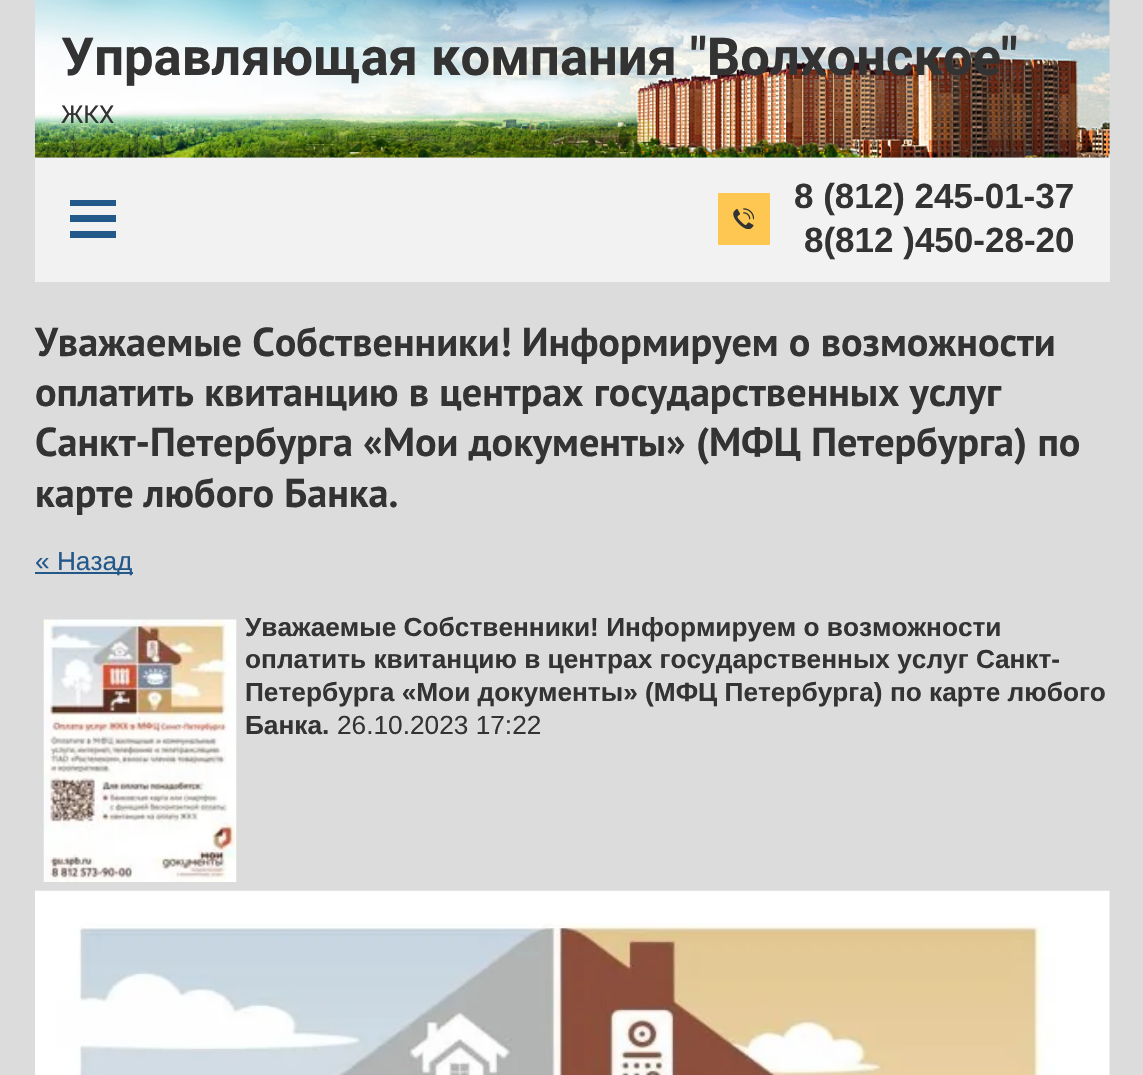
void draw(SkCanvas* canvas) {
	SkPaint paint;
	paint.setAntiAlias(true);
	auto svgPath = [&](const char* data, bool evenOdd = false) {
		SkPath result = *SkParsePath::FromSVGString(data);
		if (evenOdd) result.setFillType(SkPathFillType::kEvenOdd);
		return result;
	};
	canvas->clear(0xffdcdcdc);
	canvas->drawImageRect(SkImages::DeferredFromEncodedData(SkData::MakeFromFileName("img1.png")), SkRect::MakeXYWH(35, 0, 1075, 158), SkSamplingOptions());
	SkFont f1(fontMgr->matchFamilyStyle("roboto", SkFontStyle::Bold()), 52.5);
	f1.setSubpixel(true);
	paint.setColor(0xff333333);
	canvas->drawString("Управляющая компания \"Волхонское\"", 61, 75, f1, paint);
	SkFont f2(fontMgr->matchFamilyStyle("roboto", SkFontStyle::Normal()), 24.5);
	f2.setSubpixel(true);
	canvas->drawString("ЖКХ", 61, 123, f2, paint);
	paint.setColor(0xfff2f2f2);
	canvas->drawRect(SkRect::MakeXYWH(35, 158, 1075, 124), paint);
	paint.setColor(0xff23588a);
	canvas->drawPath(svgPath("M70 238V231H116V238ZM70 215H116V222H70ZM70 200H116V206H70Z"), paint);
	paint.setColor(0xfffec752);
	canvas->drawRect(SkRect::MakeXYWH(718, 193, 52, 52), paint);
	canvas->drawImageRect(SkImages::DeferredFromEncodedData(SkData::MakeFromFileName("img2.png")), SkRect::MakeXYWH(733, 208, 21, 21), SkSamplingOptions());
	SkFont f3(fontMgr->matchFamilyStyle("Liberation Sans", SkFontStyle::Bold()), 35);
	f3.setSubpixel(true);
	paint.setColor(0xff333333);
	canvas->drawString("8 (812) 245-01-37", 794, 208, f3, paint);
	canvas->drawString("8(812 )450-28-20", 804, 252, f3, paint);
	SkFont f4(fontMgr->matchFamilyStyle("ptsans", SkFontStyle::Bold()), 40.25);
	f4.setSubpixel(true);
	canvas->drawString("Уважаемые Собственники! Информируем о возможности", 35, 356, f4, paint);
	canvas->drawString("оплатить квитанцию в центрах государственных услуг", 35, 406, f4, paint);
	canvas->drawString("Санкт-Петербурга «Мои документы» (МФЦ Петербурга) по", 35, 456, f4, paint);
	canvas->drawString("карте любого Банка.", 35, 507, f4, paint);
	paint.setColor(0xff23588a);
	canvas->drawRect(SkRect::MakeXYWH(35, 572, 98, 2), paint);
	SkFont f5(fontMgr->matchFamilyStyle("Liberation Sans", SkFontStyle::Normal()), 26.25);
	f5.setSubpixel(true);
	canvas->drawString("« Назад", 35, 570, f5, paint);
	canvas->drawImageRect(SkImages::DeferredFromEncodedData(SkData::MakeFromFileName("img3.png")), SkRect::MakeXYWH(43, 619, 194, 263), SkSamplingOptions());
	SkFont f6(fontMgr->matchFamilyStyle("Liberation Sans", SkFontStyle::Bold()), 26.25);
	f6.setSubpixel(true);
	paint.setColor(0xff333333);
	canvas->drawString("Уважаемые Собственники! Информируем о возможности", 245, 636, f6, paint);
	canvas->drawString("оплатить квитанцию в центрах государственных услуг Санкт-", 245, 668, f6, paint);
	canvas->drawString("Петербурга «Мои документы» (МФЦ Петербурга) по карте любого", 245, 701, f6, paint);
	canvas->drawString("Банка.", 245, 734, f6, paint);
	canvas->drawString("26.10.2023 17:22", 337, 734, f5, paint);
	canvas->drawImageRect(SkImages::DeferredFromEncodedData(SkData::MakeFromFileName("img4.png")), SkRect::MakeXYWH(35, 890, 1075, 185), SkSamplingOptions());
}
